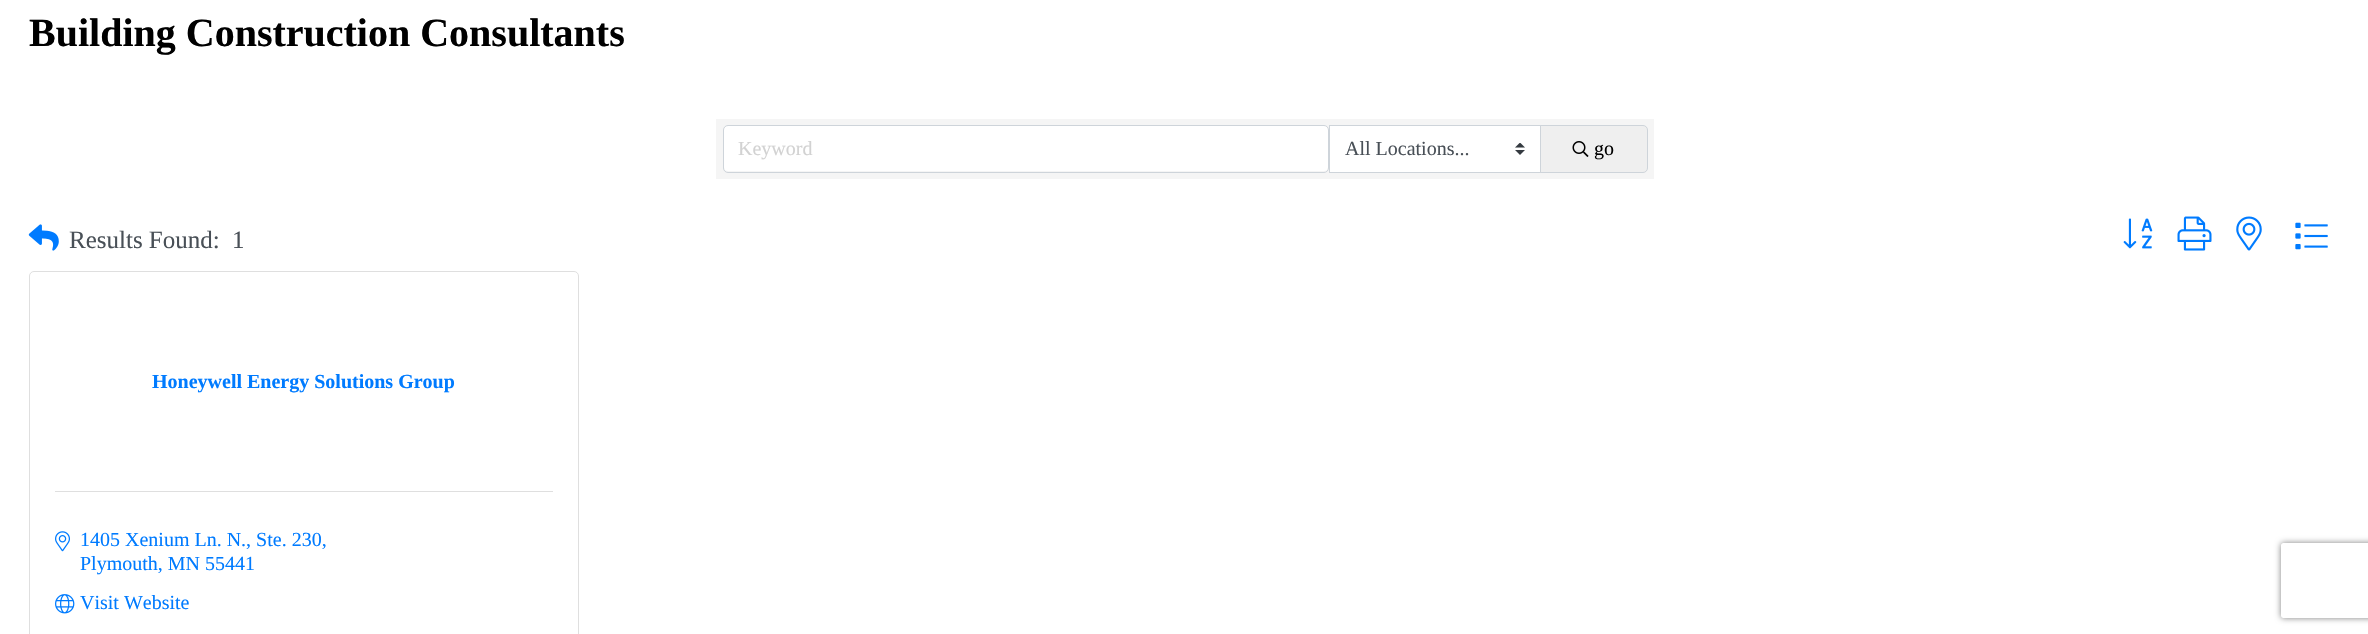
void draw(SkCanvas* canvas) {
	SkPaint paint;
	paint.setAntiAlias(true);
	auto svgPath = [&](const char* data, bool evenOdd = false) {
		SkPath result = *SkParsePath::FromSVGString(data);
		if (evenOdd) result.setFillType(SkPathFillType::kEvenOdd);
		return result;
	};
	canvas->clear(0xffffffff);
	SkFont f1(fontMgr->matchFamilyStyle("Liberation Serif", SkFontStyle::Bold()), 40);
	f1.setSubpixel(true);
	paint.setColor(0xff000000);
	canvas->drawString("Building Construction Consultants", 29, 46, f1, paint);
	paint.setColor(0xfff5f5f5);
	canvas->drawRect(SkRect::MakeXYWH(716, 119, 938, 60), paint);
	paint.setColor(0xffffffff);
	canvas->drawRoundRect(SkRect::MakeXYWH(724, 126, 604, 45), 4, 4, paint);
	paint.setStroke(true);
	paint.setStrokeWidth(1);
	paint.setColor(0xffced4da);
	canvas->drawRoundRect(SkRect::MakeXYWH(723.5, 125.5, 605, 47), 4.5, 4.5, paint);
	SkFont f2(fontMgr->matchFamilyStyle("Liberation Serif", SkFontStyle::Normal()), 20);
	f2.setSubpixel(true);
	paint.setStroke(false);
	paint.setColor(0xffd2d2d2);
	canvas->drawString("Keyword", 738, 155, f2, paint);
	paint.setColor(0xffffffff);
	canvas->drawRect(SkRect::MakeXYWH(1330, 126, 210, 46), paint);
	canvas->drawImageRect(SkImages::DeferredFromEncodedData(SkData::MakeFromFileName("img1.png")), SkRect::MakeXYWH(1515, 143, 10, 12), SkSamplingOptions());
	paint.setStroke(true);
	paint.setColor(0xffced4da);
	canvas->drawRect(SkRect::MakeXYWH(1329.5, 125.5, 211, 47), paint);
	paint.setStroke(false);
	paint.setColor(0xff495057);
	canvas->drawString("All Locations...", 1345, 155, f2, paint);
	paint.setColor(0xffefefef);
	canvas->drawPath(svgPath("M1540.5 125.5H1643C1645.5 125.5 1647.5 127.5 1647.5 130V168C1647.5 170.5 1645.5 172.5 1643 172.5H1540.5Z"), paint);
	paint.setStroke(true);
	paint.setColor(0xffced4da);
	canvas->drawPath(svgPath("M1540.5 125.5H1643C1645.5 125.5 1647.5 127.5 1647.5 130V168C1647.5 170.5 1645.5 172.5 1643 172.5H1540.5Z"), paint);
	canvas->drawImageRect(SkImages::DeferredFromEncodedData(SkData::MakeFromFileName("img2.png")), SkRect::MakeXYWH(1572, 141, 17, 16), SkSamplingOptions());
	paint.setStroke(false);
	paint.setColor(0xff000000);
	canvas->drawString("go", 1594, 155, f2, paint);
	canvas->drawImageRect(SkImages::DeferredFromEncodedData(SkData::MakeFromFileName("img3.png")), SkRect::MakeXYWH(28, 224, 31, 27), SkSamplingOptions());
	SkFont f3(fontMgr->matchFamilyStyle("Liberation Serif", SkFontStyle::Normal()), 25);
	f3.setSubpixel(true);
	paint.setColor(0xff495057);
	canvas->drawString("Results Found:", 69, 248, f3, paint);
	canvas->drawString("1", 232, 248, f3, paint);
	canvas->drawImageRect(SkImages::DeferredFromEncodedData(SkData::MakeFromFileName("img4.png")), SkRect::MakeXYWH(2123, 218, 30, 31), SkSamplingOptions());
	canvas->drawImageRect(SkImages::DeferredFromEncodedData(SkData::MakeFromFileName("img5.png")), SkRect::MakeXYWH(2177, 216, 35, 35), SkSamplingOptions());
	canvas->drawImageRect(SkImages::DeferredFromEncodedData(SkData::MakeFromFileName("img6.png")), SkRect::MakeXYWH(2236, 216, 26, 35), SkSamplingOptions());
	canvas->drawImageRect(SkImages::DeferredFromEncodedData(SkData::MakeFromFileName("img7.png")), SkRect::MakeXYWH(2295, 222, 33, 28), SkSamplingOptions());
	paint.setStroke(true);
	paint.setColor(0xffdfdfdf);
	canvas->drawRoundRect(SkRect::MakeXYWH(29.5, 271.5, 549, 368), 4.5, 4.5, paint);
	SkFont f4(fontMgr->matchFamilyStyle("Liberation Serif", SkFontStyle::Bold()), 20);
	f4.setSubpixel(true);
	paint.setStroke(false);
	paint.setColor(0xff007bff);
	canvas->drawString("Honeywell Energy Solutions Group", 152, 388, f4, paint);
	paint.setColor(0xffdfdfdf);
	canvas->drawRect(SkRect::MakeXYWH(55, 491, 498, 1), paint);
	canvas->drawImageRect(SkImages::DeferredFromEncodedData(SkData::MakeFromFileName("img8.png")), SkRect::MakeXYWH(55, 531, 15, 21), SkSamplingOptions());
	paint.setColor(0xff007bff);
	canvas->drawString("1405 Xenium Ln. N., Ste. 230,", 80, 546, f2, paint);
	canvas->drawString("Plymouth, MN 55441", 80, 570, f2, paint);
	canvas->drawImageRect(SkImages::DeferredFromEncodedData(SkData::MakeFromFileName("img9.png")), SkRect::MakeXYWH(55, 594, 20, 20), SkSamplingOptions());
	canvas->drawString("Visit Website", 80, 609, f2, paint);
	canvas->save();
	canvas->clipPath(svgPath("M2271 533H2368V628H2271ZM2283.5 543H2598.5C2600 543 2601 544 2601 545.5V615.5C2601 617 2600 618 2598.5 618H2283.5C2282 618 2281 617 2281 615.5V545.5C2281 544 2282 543 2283.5 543Z", true), true);
	paint.setColor(0xff808080);
	paint.setMaskFilter(SkMaskFilter::MakeBlur(kNormal_SkBlurStyle, 3));
	canvas->drawRoundRect(SkRect::MakeXYWH(2281, 543, 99, 75), 2.5, 2.5, paint);
	paint.setMaskFilter(nullptr);
	canvas->restore();
}
